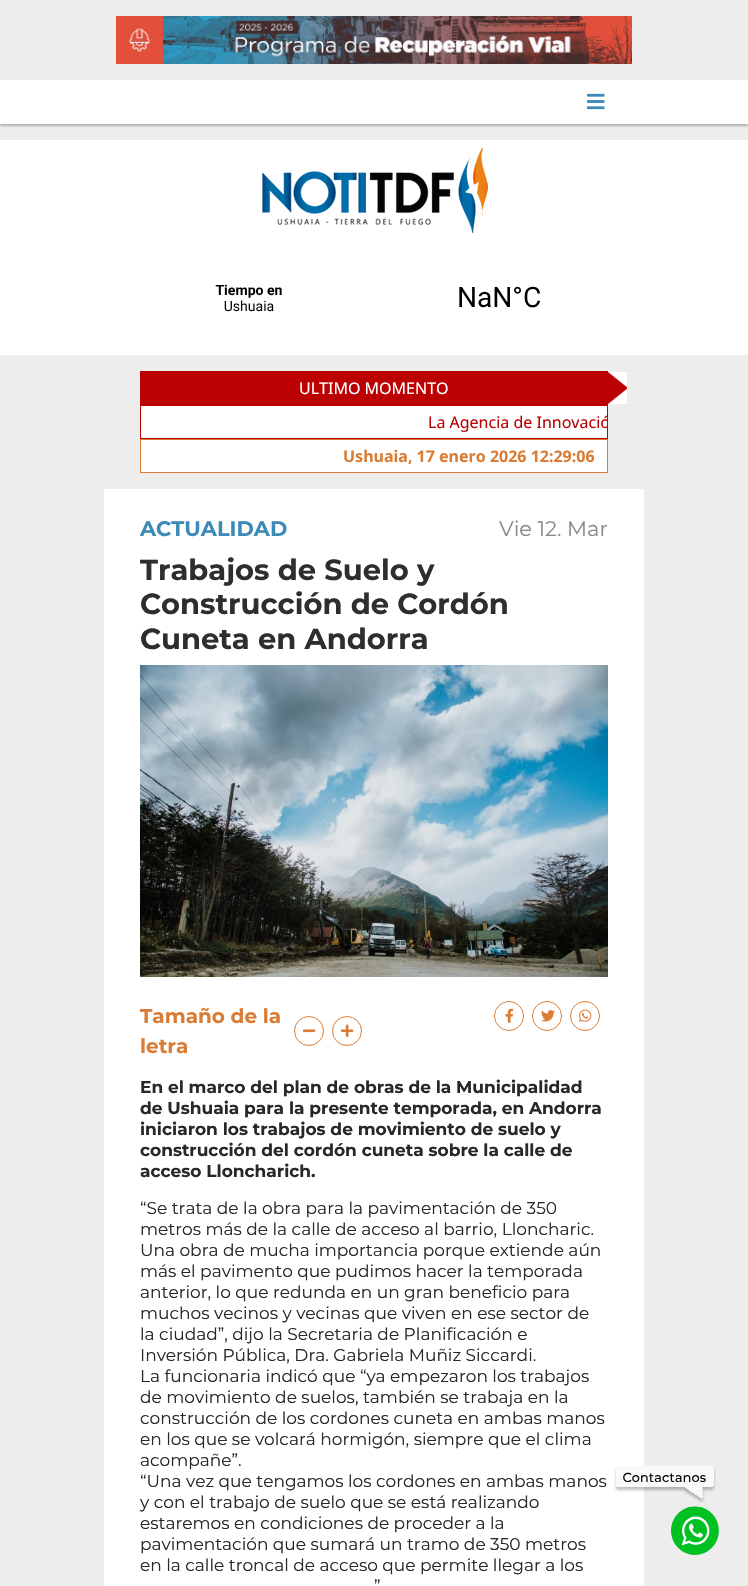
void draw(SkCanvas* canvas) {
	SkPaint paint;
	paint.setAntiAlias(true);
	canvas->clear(0xffededed);
	canvas->drawImageRect(SkImages::DeferredFromEncodedData(SkData::MakeFromFileName("img1.png")), SkRect::MakeXYWH(116, 16, 516, 48), SkSamplingOptions());
	paint.setColor(0x40000000);
	paint.setMaskFilter(SkMaskFilter::MakeBlur(kNormal_SkBlurStyle, 1));
	canvas->drawRect(SkRect::MakeXYWH(0, 82, 748, 44), paint);
	paint.setMaskFilter(nullptr);
	paint.setColor(0xffffffff);
	canvas->drawRect(SkRect::MakeXYWH(0, 80, 748, 44), paint);
	canvas->drawImageRect(SkImages::DeferredFromEncodedData(SkData::MakeFromFileName("img2.png")), SkRect::MakeXYWH(587, 93, 18, 17), SkSamplingOptions());
	canvas->drawRect(SkRect::MakeXYWH(0, 140, 748, 215), paint);
	canvas->drawImageRect(SkImages::DeferredFromEncodedData(SkData::MakeFromFileName("img3.png")), SkRect::MakeXYWH(262, 148, 226, 85), SkSamplingOptions());
	canvas->drawImageRect(SkImages::DeferredFromEncodedData(SkData::MakeFromFileName("img4.png")), SkRect::MakeXYWH(215, 284, 325, 28), SkSamplingOptions());
	canvas->drawRect(SkRect::MakeXYWH(141, 406, 466, 66), paint);
	paint.setColor(0xffbb0101);
	canvas->drawRect(SkRect::MakeXYWH(140, 371, 468, 34), paint);
	SkFont f1(fontMgr->matchFamilyStyle("Noto Sans", SkFontStyle::Normal()), 16);
	f1.setSubpixel(true);
	paint.setColor(0xffffffff);
	canvas->drawString("ULTIMO MOMENTO", 299, 394, f1, paint);
	{
		const SkColor colors[] = {0xffbb0101, 0xffffffff};
		const float stops[] = {0.5, 0.55};
		const SkPoint ends[] = {{609, 390}, {625, 370}};
		paint.setShader(SkGradientShader::MakeLinear(ends, colors, stops, 2, SkTileMode::kClamp));
		paint.setAlpha(255);
	}
	canvas->drawRect(SkRect::MakeXYWH(608, 372, 19, 16), paint);
	{
		const SkColor colors[] = {0xffbb0101, 0xffffffff};
		const float stops[] = {0.5, 0.55};
		const SkPoint ends[] = {{609, 386}, {625, 406}};
		paint.setShader(SkGradientShader::MakeLinear(ends, colors, stops, 2, SkTileMode::kClamp));
		paint.setAlpha(255);
	}
	canvas->drawRect(SkRect::MakeXYWH(608, 388, 19, 16), paint);
	paint.setStroke(true);
	paint.setStrokeWidth(1);
	paint.setShader(nullptr);
	paint.setColor(0xffbb0101);
	canvas->drawRect(SkRect::MakeXYWH(140.5, 405.5, 467, 33), paint);
	canvas->save();
	canvas->clipRect(SkRect::MakeXYWH(157, 410, 450, 24));
	paint.setStroke(false);
	canvas->drawString("La Agencia de Innovació", 428, 428, f1, paint);
	canvas->restore();
	paint.setStroke(true);
	paint.setColor(0xffda7c34);
	canvas->drawRect(SkRect::MakeXYWH(140.5, 439.5, 467, 33), paint);
	SkFont f2(fontMgr->matchFamilyStyle("Noto Sans", SkFontStyle::Bold()), 16);
	f2.setSubpixel(true);
	paint.setStroke(false);
	canvas->drawString("Ushuaia, 17 enero 2026 12:29:06", 343, 462, f2, paint);
	paint.setColor(0xffffffff);
	canvas->drawRect(SkRect::MakeXYWH(104, 489, 540, 1097), paint);
	SkFont f3(fontMgr->matchFamilyStyle("Montserrat", SkFontStyle::Bold()), 21);
	f3.setSubpixel(true);
	paint.setColor(0xff3d8ab8);
	canvas->drawString("ACTUALIDAD", 140, 536, f3, paint);
	SkFont f4(fontMgr->matchFamilyStyle("Montserrat", SkFontStyle::Normal()), 21);
	f4.setSubpixel(true);
	paint.setColor(0xff8a8a8a);
	canvas->drawString("Vie 12. Mar", 499, 536, f4, paint);
	SkFont f5(fontMgr->matchFamilyStyle("Montserrat", SkFontStyle::Bold()), 29);
	f5.setSubpixel(true);
	paint.setColor(0xff2e2e2e);
	canvas->drawString("Trabajos de Suelo y", 140, 580, f5, paint);
	canvas->drawString("Construcción de Cordón", 140, 614, f5, paint);
	canvas->drawString("Cuneta en Andorra", 140, 649, f5, paint);
	canvas->drawImageRect(SkImages::DeferredFromEncodedData(SkData::MakeFromFileName("img5.png")), SkRect::MakeXYWH(140, 665, 468, 312), SkSamplingOptions());
	SkFont f6(fontMgr->matchFamilyStyle("Montserrat", SkFontStyle::Bold()), 20);
	f6.setSubpixel(true);
	paint.setColor(0xffda7c34);
	canvas->drawString("Tamaño de la", 140, 1023, f6, paint);
	canvas->drawString("letra", 140, 1053, f6, paint);
	paint.setStroke(true);
	canvas->drawCircle(309, 1031, 14.5, paint);
	canvas->drawImageRect(SkImages::DeferredFromEncodedData(SkData::MakeFromFileName("img6.png")), SkRect::MakeXYWH(303, 1029, 13, 4), SkSamplingOptions());
	canvas->drawCircle(347, 1031, 14.5, paint);
	canvas->drawImageRect(SkImages::DeferredFromEncodedData(SkData::MakeFromFileName("img7.png")), SkRect::MakeXYWH(341, 1024, 13, 13), SkSamplingOptions());
	canvas->drawCircle(509, 1016, 14.5, paint);
	canvas->drawImageRect(SkImages::DeferredFromEncodedData(SkData::MakeFromFileName("img8.png")), SkRect::MakeXYWH(505, 1008, 9, 15), SkSamplingOptions());
	canvas->drawCircle(547, 1016, 14.5, paint);
	canvas->drawImageRect(SkImages::DeferredFromEncodedData(SkData::MakeFromFileName("img9.png")), SkRect::MakeXYWH(541, 1010, 14, 12), SkSamplingOptions());
	canvas->drawCircle(585, 1016, 14.5, paint);
	canvas->drawImageRect(SkImages::DeferredFromEncodedData(SkData::MakeFromFileName("img10.png")), SkRect::MakeXYWH(579, 1009, 13, 13), SkSamplingOptions());
	SkFont f7(fontMgr->matchFamilyStyle("Montserrat", SkFontStyle::Bold()), 17);
	f7.setSubpixel(true);
	paint.setStroke(false);
	paint.setColor(0xff282828);
	canvas->drawString("En el marco del plan de obras de la Municipalidad", 140, 1093, f7, paint);
	canvas->drawString("de Ushuaia para la presente temporada, en Andorra", 140, 1114, f7, paint);
	canvas->drawString("iniciaron los trabajos de movimiento de suelo y", 140, 1135, f7, paint);
	canvas->drawString("construcción del cordón cuneta sobre la calle de", 140, 1156, f7, paint);
	canvas->drawString("acceso Lloncharich.", 140, 1177, f7, paint);
	SkFont f8(fontMgr->matchFamilyStyle("Montserrat", SkFontStyle::Normal()), 17);
	f8.setSubpixel(true);
	canvas->drawString("“Se trata de la obra para la pavimentación de 350", 140, 1214, f8, paint);
	canvas->drawString("metros más de la calle de acceso al barrio, Lloncharic.", 140, 1235, f8, paint);
	canvas->drawString("Una obra de mucha importancia porque extiende aún", 140, 1256, f8, paint);
	canvas->drawString("más el pavimento que pudimos hacer la temporada", 140, 1277, f8, paint);
	canvas->drawString("anterior, lo que redunda en un gran beneficio para", 140, 1298, f8, paint);
	canvas->drawString("muchos vecinos y vecinas que viven en ese sector de", 140, 1319, f8, paint);
	canvas->drawString("la ciudad”, dijo la Secretaria de Planificación e", 140, 1340, f8, paint);
	canvas->drawString("Inversión Pública, Dra. Gabriela Muñiz Siccardi.", 140, 1361, f8, paint);
	canvas->drawString("La funcionaria indicó que “ya empezaron los trabajos", 140, 1382, f8, paint);
	canvas->drawString("de movimiento de suelos, también se trabaja en la", 140, 1403, f8, paint);
	canvas->drawString("construcción de los cordones cuneta en ambas manos", 140, 1424, f8, paint);
	canvas->drawString("en los que se volcará hormigón, siempre que el clima", 140, 1445, f8, paint);
	canvas->drawString("acompañe”.", 140, 1466, f8, paint);
	canvas->drawString("“Una vez que tengamos los cordones en ambas manos", 140, 1487, f8, paint);
	canvas->drawString("y con el trabajo de suelo que se está realizando", 140, 1508, f8, paint);
	canvas->drawString("estaremos en condiciones de proceder a la", 140, 1529, f8, paint);
	canvas->drawString("pavimentación que sumará un tramo de 350 metros", 140, 1550, f8, paint);
	canvas->drawString("en la calle troncal de acceso que permite llegar a los", 140, 1571, f8, paint);
	canvas->drawString("”", 374, 1592, f8, paint);
	canvas->drawImageRect(SkImages::DeferredFromEncodedData(SkData::MakeFromFileName("img11.png")), SkRect::MakeXYWH(614, 1466, 102, 37), SkSamplingOptions());
	canvas->drawImageRect(SkImages::DeferredFromEncodedData(SkData::MakeFromFileName("img12.png")), SkRect::MakeXYWH(671, 1506, 48, 49), SkSamplingOptions());
}
